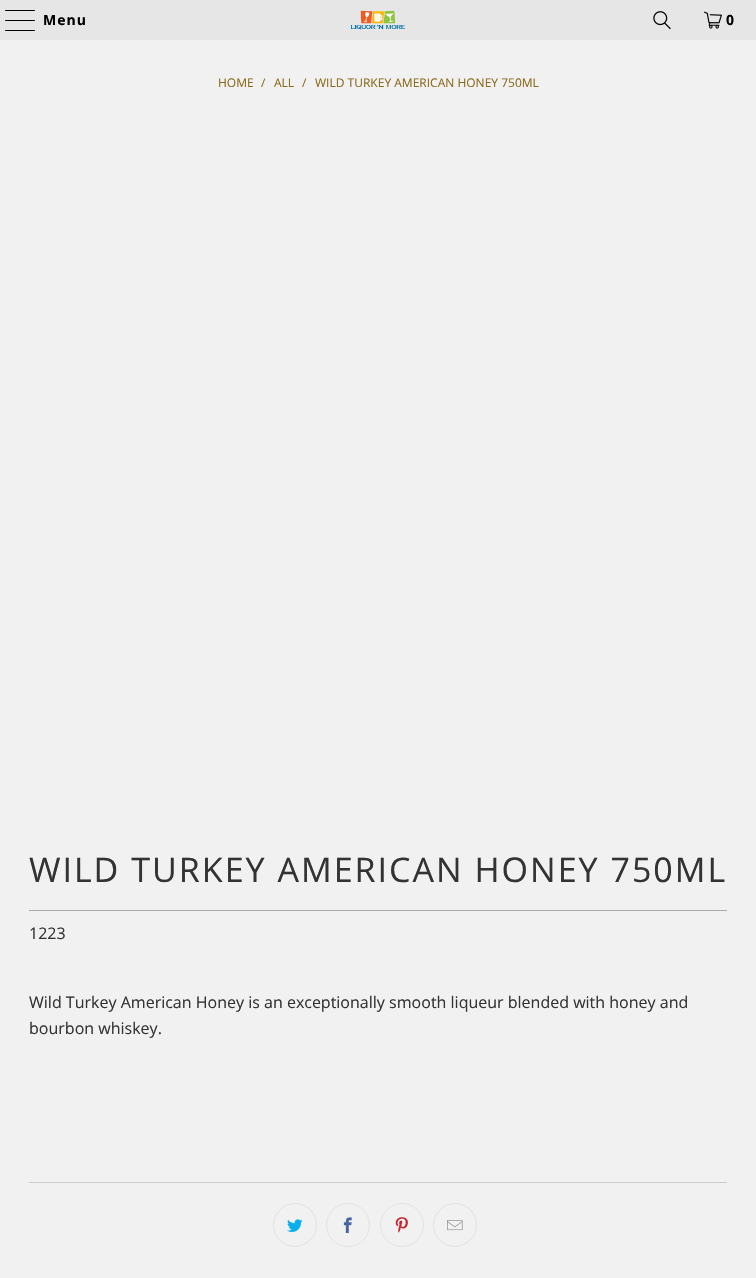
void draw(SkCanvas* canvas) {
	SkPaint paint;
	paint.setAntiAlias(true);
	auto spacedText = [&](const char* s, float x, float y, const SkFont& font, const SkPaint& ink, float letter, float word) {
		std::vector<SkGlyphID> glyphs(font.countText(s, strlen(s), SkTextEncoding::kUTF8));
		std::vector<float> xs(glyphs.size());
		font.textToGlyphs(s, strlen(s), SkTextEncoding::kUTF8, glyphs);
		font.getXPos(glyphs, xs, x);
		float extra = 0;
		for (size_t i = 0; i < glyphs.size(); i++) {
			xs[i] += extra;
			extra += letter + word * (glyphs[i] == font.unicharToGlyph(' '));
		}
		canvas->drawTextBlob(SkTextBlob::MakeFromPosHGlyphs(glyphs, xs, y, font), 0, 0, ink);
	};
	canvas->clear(0xfff1f1f1);
	paint.setColor(0xffe6e6e6);
	canvas->drawRect(SkRect::MakeXYWH(0, 0, 756, 40), paint);
	paint.setColor(0xff000000);
	canvas->drawRoundRect(SkRect::MakeXYWH(5, 10, 30, 1), 0.5, 0.5, paint);
	canvas->drawRoundRect(SkRect::MakeXYWH(5, 20, 30, 1), 0.5, 0.5, paint);
	canvas->drawRoundRect(SkRect::MakeXYWH(5, 30, 30, 1), 0.5, 0.5, paint);
	SkFont f1(fontMgr->matchFamilyStyle("Open Sans", SkFontStyle::Bold()), 14);
	f1.setSubpixel(true);
	spacedText("Menu", 43, 25, f1, paint, 1, 0);
	canvas->drawImageRect(SkImages::DeferredFromEncodedData(SkData::MakeFromFileName("img1.png")), SkRect::MakeXYWH(350, 10, 56, 20), SkSamplingOptions());
	canvas->drawImageRect(SkImages::DeferredFromEncodedData(SkData::MakeFromFileName("img2.png")), SkRect::MakeXYWH(653, 11, 18, 19), SkSamplingOptions());
	canvas->drawImageRect(SkImages::DeferredFromEncodedData(SkData::MakeFromFileName("img3.png")), SkRect::MakeXYWH(704, 11, 18, 18), SkSamplingOptions());
	spacedText("0", 726, 25, f1, paint, 1, 0);
	SkFont f2(fontMgr->matchFamilyStyle("Open Sans", SkFontStyle::Normal()), 12);
	f2.setSubpixel(true);
	paint.setColor(0xff8b6a1b);
	canvas->drawString("HOME", 218, 87, f2, paint);
	canvas->drawString("/", 261, 87, f2, paint);
	canvas->drawString("ALL", 274, 87, f2, paint);
	canvas->drawString("/", 302, 87, f2, paint);
	canvas->drawString("WILD TURKEY AMERICAN HONEY 750ML", 315, 87, f2, paint);
	SkFont f3(fontMgr->matchFamilyStyle("Open Sans", SkFontStyle::Normal()), 34);
	f3.setSubpixel(true);
	paint.setColor(0xff333333);
	spacedText("WILD TURKEY AMERICAN HONEY 750ML", 29, 882, f3, paint, 2, 0);
	paint.setColor(0xffaaaaaa);
	canvas->drawRect(SkRect::MakeXYWH(29, 910, 698, 1), paint);
	SkFont f4(fontMgr->matchFamilyStyle("Open Sans", SkFontStyle::Normal()), 16);
	f4.setSubpixel(true);
	paint.setColor(0xff333333);
	canvas->drawString("1223", 29, 939, f4, paint);
	canvas->drawString("Wild Turkey American Honey is an exceptionally smooth liqueur blended with honey and", 29, 1008, f4, paint);
	canvas->drawString("bourbon whiskey.", 29, 1034, f4, paint);
	paint.setColor(0xffcccccc);
	canvas->drawRect(SkRect::MakeXYWH(29, 1182, 698, 1), paint);
	paint.setStroke(true);
	paint.setStrokeWidth(1);
	paint.setColor(0xffe2e2e2);
	canvas->drawCircle(295, 1225, 21.5, paint);
	canvas->drawImageRect(SkImages::DeferredFromEncodedData(SkData::MakeFromFileName("img4.png")), SkRect::MakeXYWH(287, 1219, 16, 13), SkSamplingOptions());
	canvas->drawCircle(348, 1225, 21.5, paint);
	canvas->drawImageRect(SkImages::DeferredFromEncodedData(SkData::MakeFromFileName("img5.png")), SkRect::MakeXYWH(343, 1217, 9, 16), SkSamplingOptions());
	canvas->drawCircle(402, 1225, 21.5, paint);
	canvas->drawImageRect(SkImages::DeferredFromEncodedData(SkData::MakeFromFileName("img6.png")), SkRect::MakeXYWH(395, 1217, 13, 16), SkSamplingOptions());
	canvas->drawCircle(455, 1225, 21.5, paint);
	canvas->drawImageRect(SkImages::DeferredFromEncodedData(SkData::MakeFromFileName("img7.png")), SkRect::MakeXYWH(447, 1220, 16, 11), SkSamplingOptions());
}
